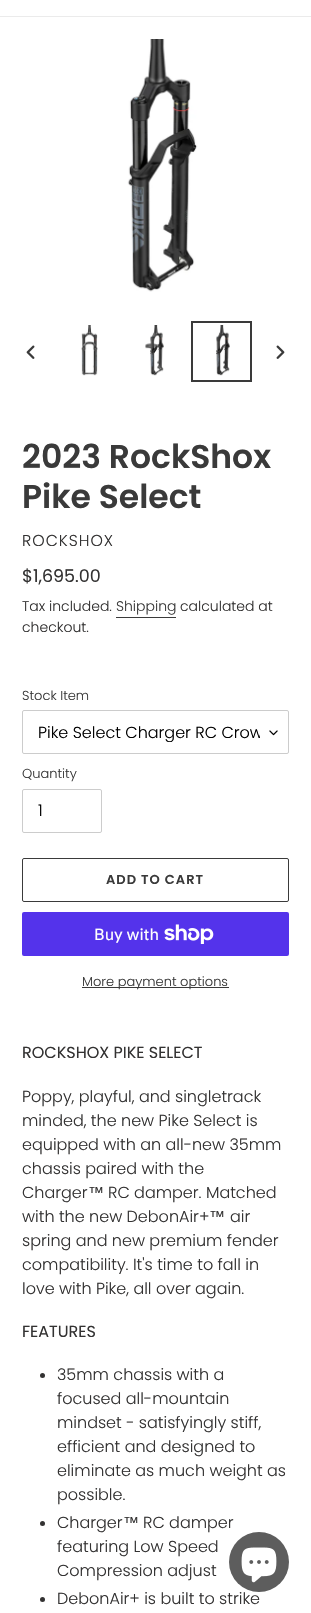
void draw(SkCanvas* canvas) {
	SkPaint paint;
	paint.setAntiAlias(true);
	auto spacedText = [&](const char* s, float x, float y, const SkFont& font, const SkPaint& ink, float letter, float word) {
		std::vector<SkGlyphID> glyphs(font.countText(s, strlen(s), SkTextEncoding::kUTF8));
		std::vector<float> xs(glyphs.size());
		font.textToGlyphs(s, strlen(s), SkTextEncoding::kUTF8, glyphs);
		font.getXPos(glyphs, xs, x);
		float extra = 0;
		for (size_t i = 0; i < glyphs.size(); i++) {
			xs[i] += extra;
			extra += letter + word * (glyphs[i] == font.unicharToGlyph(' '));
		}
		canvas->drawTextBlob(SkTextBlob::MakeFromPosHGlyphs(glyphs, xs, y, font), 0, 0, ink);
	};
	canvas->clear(0xffffffff);
	paint.setColor(0xffebebeb);
	canvas->drawRect(SkRect::MakeXYWH(0, 16, 311, 1), paint);
	canvas->drawImageRect(SkImages::DeferredFromEncodedData(SkData::MakeFromFileName("img1.png")), SkRect::MakeXYWH(127, 39, 71, 253), SkSamplingOptions());
	canvas->drawImageRect(SkImages::DeferredFromEncodedData(SkData::MakeFromFileName("img2.png")), SkRect::MakeXYWH(26, 345, 9, 14), SkSamplingOptions());
	canvas->drawImageRect(SkImages::DeferredFromEncodedData(SkData::MakeFromFileName("img3.png")), SkRect::MakeXYWH(81, 325, 17, 51), SkSamplingOptions());
	canvas->drawImageRect(SkImages::DeferredFromEncodedData(SkData::MakeFromFileName("img4.png")), SkRect::MakeXYWH(145, 325, 19, 51), SkSamplingOptions());
	paint.setStroke(true);
	paint.setStrokeWidth(2);
	paint.setColor(0xff3a3a3a);
	canvas->drawRect(SkRect::MakeXYWH(192, 322, 59, 59), paint);
	canvas->drawImageRect(SkImages::DeferredFromEncodedData(SkData::MakeFromFileName("img5.png")), SkRect::MakeXYWH(216, 325, 14, 51), SkSamplingOptions());
	canvas->drawImageRect(SkImages::DeferredFromEncodedData(SkData::MakeFromFileName("img6.png")), SkRect::MakeXYWH(276, 345, 9, 14), SkSamplingOptions());
	SkFont f1(fontMgr->matchFamilyStyle("Poppins", SkFontStyle(600, SkFontStyle::kNormal_Width, SkFontStyle::kUpright_Slant)), 33);
	f1.setSubpixel(true);
	paint.setStroke(false);
	canvas->drawString("2023 RockShox", 22, 468, f1, paint);
	canvas->drawString("Pike Select", 22, 508, f1, paint);
	SkFont f2(fontMgr->matchFamilyStyle("Poppins", SkFontStyle(300, SkFontStyle::kNormal_Width, SkFontStyle::kUpright_Slant)), 15.75);
	f2.setSubpixel(true);
	paint.setColor(0xff333232);
	spacedText("ROCKSHOX", 22, 546, f2, paint, 1, 0);
	SkFont f3(fontMgr->matchFamilyStyle("Poppins", SkFontStyle::Normal()), 17.5);
	f3.setSubpixel(true);
	canvas->drawString("$1,695.00", 22, 582, f3, paint);
	SkFont f4(fontMgr->matchFamilyStyle("Poppins", SkFontStyle(300, SkFontStyle::kNormal_Width, SkFontStyle::kUpright_Slant)), 14);
	f4.setSubpixel(true);
	canvas->drawString("Tax included.", 22, 611, f4, paint);
	paint.setColor(0xff3a3a3a);
	canvas->drawString("Shipping", 116, 611, f4, paint);
	canvas->drawRect(SkRect::MakeXYWH(116, 617, 60, 1), paint);
	paint.setColor(0xff333232);
	canvas->drawString("calculated at", 180, 611, f4, paint);
	canvas->drawString("checkout.", 22, 632, f4, paint);
	SkFont f5(fontMgr->matchFamilyStyle("Poppins", SkFontStyle(300, SkFontStyle::kNormal_Width, SkFontStyle::kUpright_Slant)), 13);
	f5.setSubpixel(true);
	paint.setColor(0xff3a3a3a);
	canvas->drawString("Stock Item", 22, 700, f5, paint);
	canvas->drawImageRect(SkImages::DeferredFromEncodedData(SkData::MakeFromFileName("img7.png")), SkRect::MakeXYWH(269, 730, 9, 6), SkSamplingOptions());
	paint.setStroke(true);
	paint.setStrokeWidth(1);
	paint.setColor(0xffcccccc);
	canvas->drawRoundRect(SkRect::MakeXYWH(22.5, 710.5, 266, 43), 1.5, 1.5, paint);
	canvas->save();
	canvas->clipRect(SkRect::MakeXYWH(38, 723, 222, 19));
	SkFont f6(fontMgr->matchFamilyStyle("Poppins", SkFontStyle(300, SkFontStyle::kNormal_Width, SkFontStyle::kUpright_Slant)), 16);
	f6.setSubpixel(true);
	paint.setStroke(false);
	paint.setColor(0xff000000);
	canvas->drawString("Pike Select Charger RC Crow", 38, 738, f6, paint);
	canvas->restore();
	paint.setColor(0xff3a3a3a);
	canvas->drawString("Quantity", 22, 778, f5, paint);
	paint.setStroke(true);
	paint.setColor(0xffcccccc);
	canvas->drawRoundRect(SkRect::MakeXYWH(22.5, 789.5, 79, 43), 1.5, 1.5, paint);
	paint.setStroke(false);
	paint.setColor(0xff000000);
	canvas->drawString("1", 38, 816, f6, paint);
	paint.setStroke(true);
	paint.setColor(0xff3a3a3a);
	canvas->drawRoundRect(SkRect::MakeXYWH(22.5, 858.5, 266, 43), 1.5, 1.5, paint);
	SkFont f7(fontMgr->matchFamilyStyle("Poppins", SkFontStyle(600, SkFontStyle::kNormal_Width, SkFontStyle::kUpright_Slant)), 13);
	f7.setSubpixel(true);
	paint.setStroke(false);
	spacedText("ADD TO CART", 106, 884, f7, paint, 1, 0);
	paint.setColor(0xff5433eb);
	canvas->drawRoundRect(SkRect::MakeXYWH(22, 912, 267, 44), 2, 2, paint);
	SkFont f8(fontMgr->matchFamilyStyle("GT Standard", SkFontStyle::Normal()), 16);
	f8.setSubpixel(true);
	paint.setColor(0xffffffff);
	canvas->drawString("Buy with", 94, 940, f8, paint);
	canvas->drawImageRect(SkImages::DeferredFromEncodedData(SkData::MakeFromFileName("img8.png")), SkRect::MakeXYWH(164, 924, 50, 20), SkSamplingOptions());
	paint.setColor(0xff3a3a3a);
	canvas->drawRect(SkRect::MakeXYWH(82, 987, 147, 1), paint);
	canvas->drawString("More payment options", 82, 986, f5, paint);
	SkFont f9(fontMgr->matchFamilyStyle("Poppins", SkFontStyle::Normal()), 16);
	f9.setSubpixel(true);
	paint.setColor(0xff333232);
	canvas->drawString("ROCKSHOX PIKE SELECT", 22, 1058, f9, paint);
	canvas->drawString("Poppy, playful, and singletrack", 22, 1102, f6, paint);
	canvas->drawString("minded, the new Pike Select is", 22, 1126, f6, paint);
	canvas->drawString("equipped with an all-new 35mm", 22, 1150, f6, paint);
	canvas->drawString("chassis paired with the", 22, 1174, f6, paint);
	canvas->drawString("Charger", 22, 1198, f6, paint);
	SkFont f10(fontMgr->matchFamilyStyle("Liberation Sans", SkFontStyle::Normal()), 16);
	f10.setSubpixel(true);
	canvas->drawString("™", 88, 1198, f10, paint);
	canvas->drawString("RC damper. Matched", 108, 1198, f6, paint);
	canvas->drawString("with the new DebonAir+", 22, 1222, f6, paint);
	canvas->drawString("™", 209, 1222, f10, paint);
	canvas->drawString("air", 230, 1222, f6, paint);
	canvas->drawString("spring and new premium fender", 22, 1246, f6, paint);
	canvas->drawString("compatibility. It's time to fall in", 22, 1270, f6, paint);
	canvas->drawString("love with Pike, all over again.", 22, 1294, f6, paint);
	canvas->drawString("FEATURES", 22, 1337, f9, paint);
	canvas->drawCircle(42.5, 1375.5, 2.5, paint);
	canvas->drawString("35mm chassis with a", 57, 1380, f6, paint);
	canvas->drawString("focused all-mountain", 57, 1404, f6, paint);
	canvas->drawString("mindset - satisfyingly stiff,", 57, 1428, f6, paint);
	canvas->drawString("efficient and designed to", 57, 1452, f6, paint);
	canvas->drawString("eliminate as much weight as", 57, 1476, f6, paint);
	canvas->drawString("possible.", 57, 1500, f6, paint);
	canvas->drawCircle(42.5, 1523.5, 2.5, paint);
	canvas->drawString("Charger", 57, 1528, f6, paint);
	canvas->drawString("™", 123, 1528, f10, paint);
	canvas->drawString("RC damper", 143, 1528, f6, paint);
	canvas->drawString("featuring Low Speed", 57, 1552, f6, paint);
	canvas->drawString("Compression adjust", 57, 1576, f6, paint);
	canvas->drawCircle(42.5, 1599.5, 2.5, paint);
	canvas->drawString("DebonAir+ is built to strike", 57, 1604, f6, paint);
	paint.setColor(0xff5d5d5d);
	canvas->drawCircle(259, 1562, 30, paint);
	canvas->drawImageRect(SkImages::DeferredFromEncodedData(SkData::MakeFromFileName("img9.png")), SkRect::MakeXYWH(241, 1547, 36, 36), SkSamplingOptions());
}
